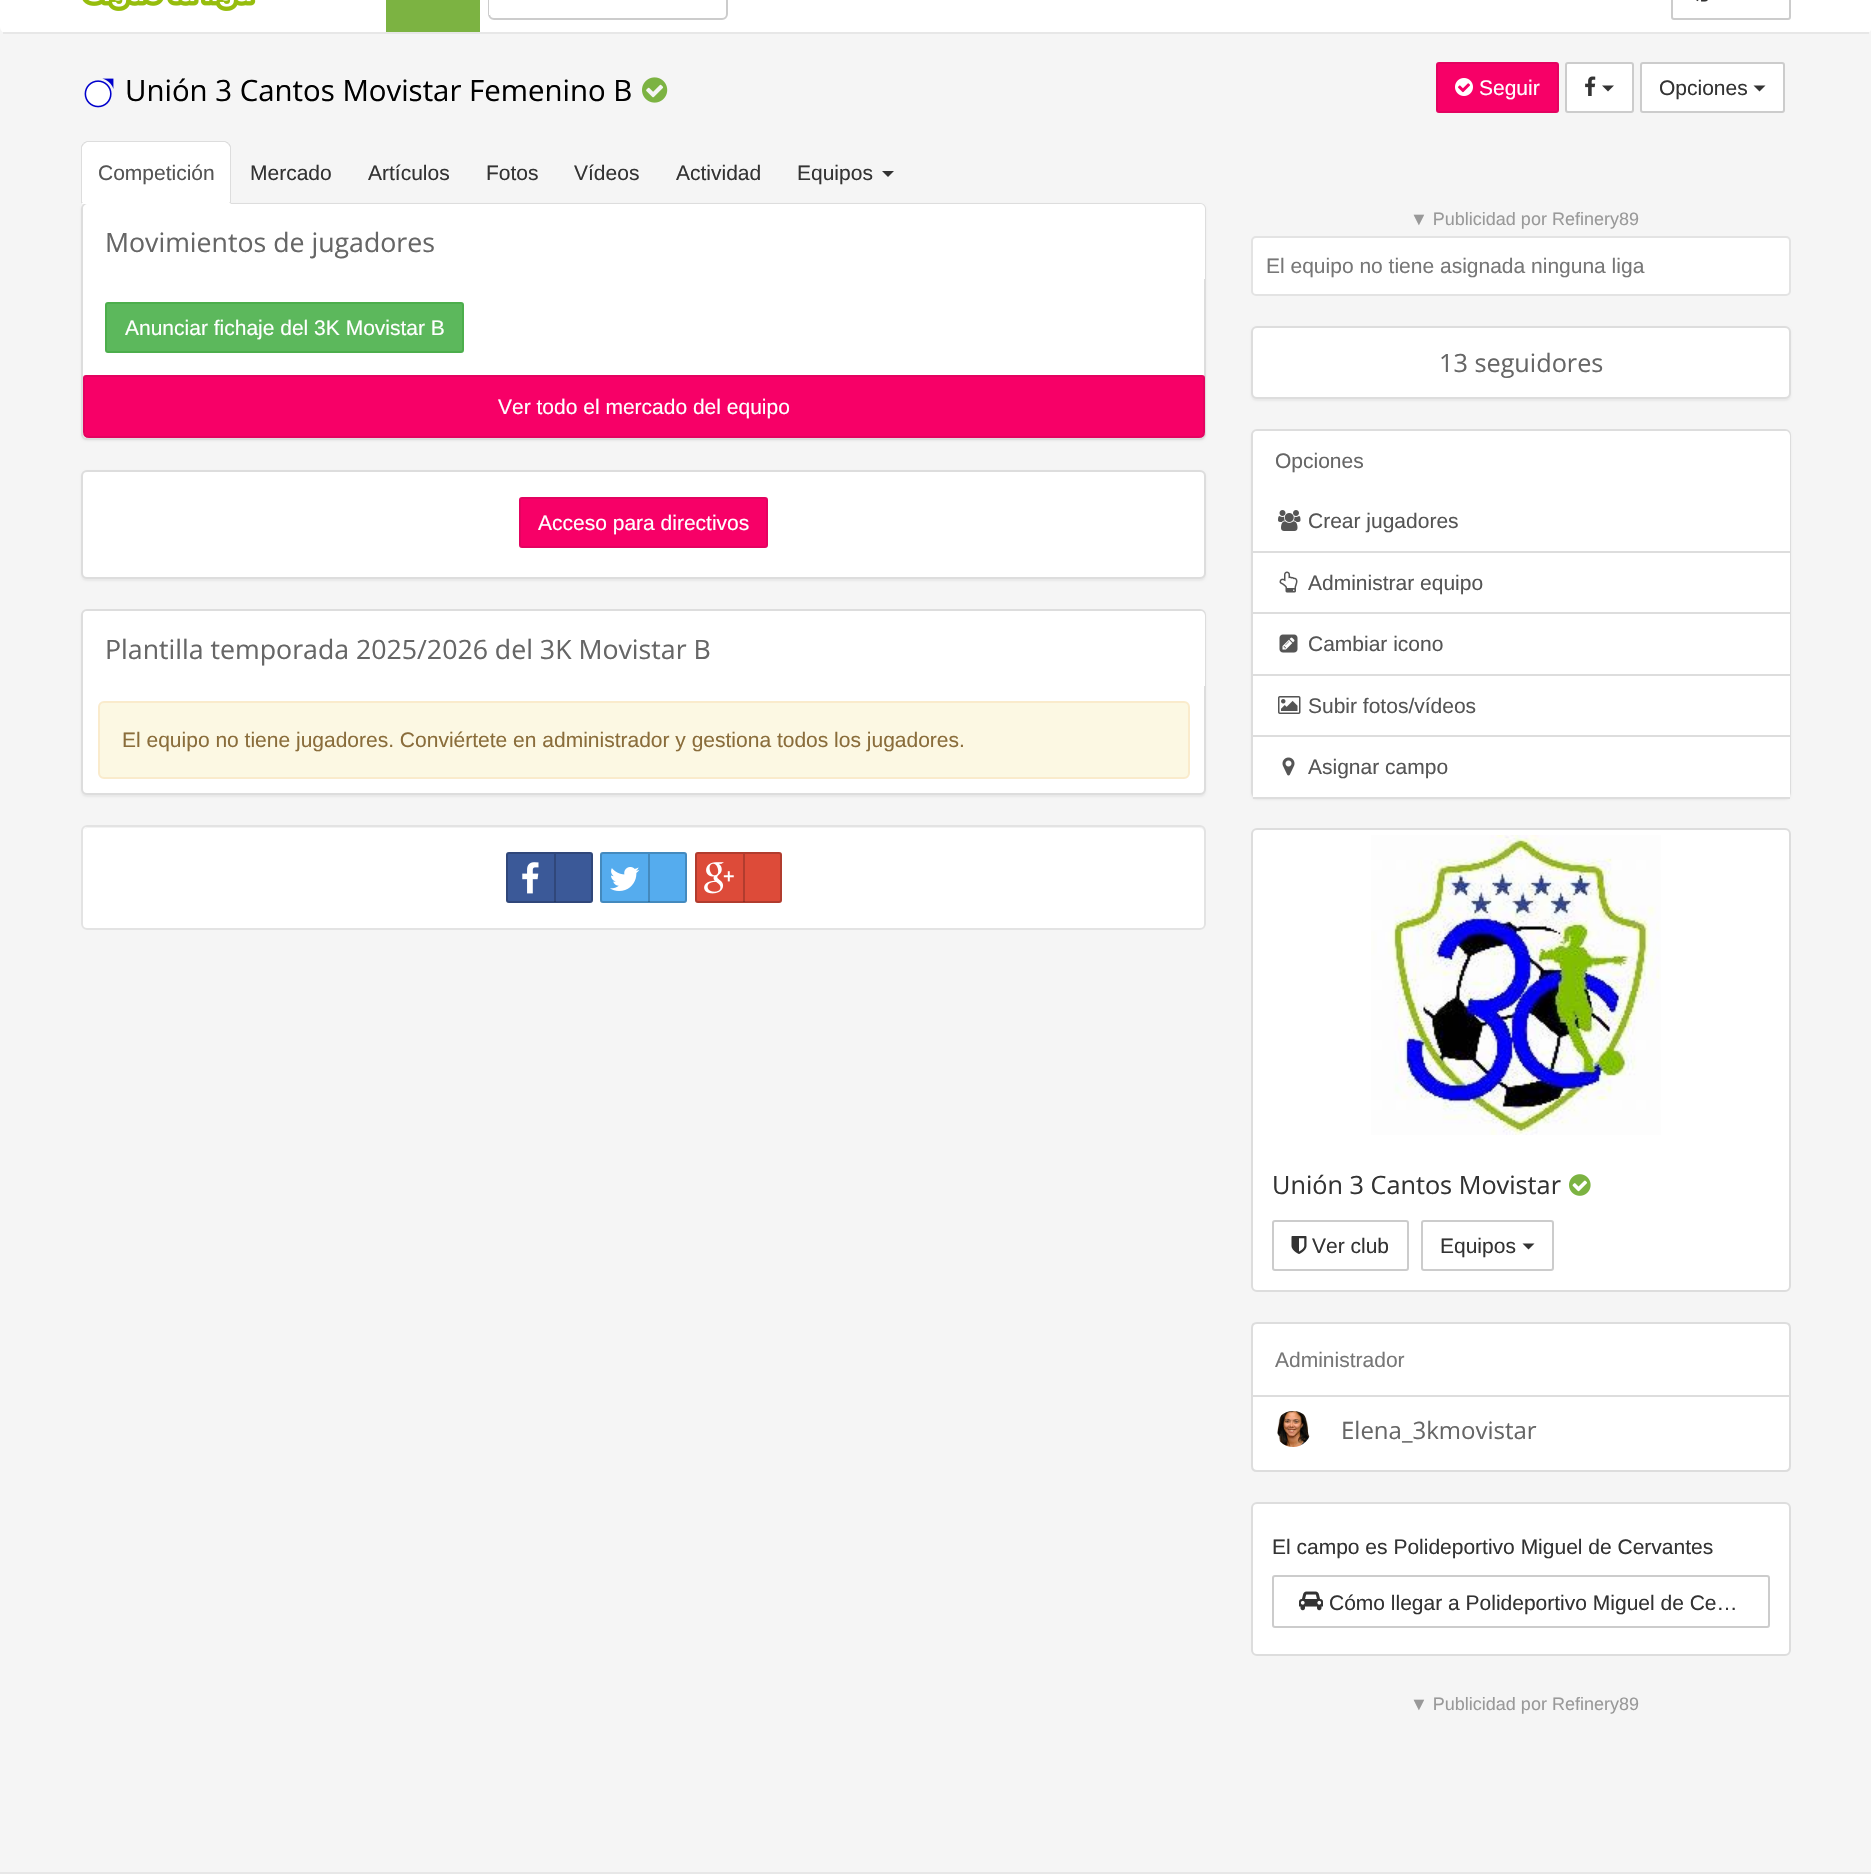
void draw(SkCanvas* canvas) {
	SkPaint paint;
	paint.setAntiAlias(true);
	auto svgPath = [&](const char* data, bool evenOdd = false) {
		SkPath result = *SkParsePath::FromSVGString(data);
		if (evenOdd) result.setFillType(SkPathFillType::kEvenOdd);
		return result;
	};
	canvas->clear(0xfff5f5f5);
	paint.setColor(0xffffffff);
	canvas->drawRoundRect(SkRect::MakeXYWH(0, -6, 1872, 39), 6, 6, paint);
	paint.setColor(0xffe7e7e7);
	canvas->drawRect(SkRect::MakeXYWH(3, 32, 1866, 2), paint);
	canvas->drawImageRect(SkImages::DeferredFromEncodedData(SkData::MakeFromFileName("img1.png")), SkRect::MakeXYWH(82, 0, 174, 11), SkSamplingOptions());
	paint.setColor(0xff7cb342);
	canvas->drawRect(SkRect::MakeXYWH(386, 0, 94, 32), paint);
	paint.setStroke(true);
	paint.setStrokeWidth(2);
	paint.setColor(0xffcccccc);
	canvas->drawRoundRect(SkRect::MakeXYWH(489, -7, 238, 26), 5, 5, paint);
	paint.setStroke(false);
	paint.setColor(0xffffffff);
	canvas->drawRect(SkRect::MakeXYWH(489, 0, 1, 15), paint);
	paint.setStroke(true);
	paint.setColor(0xffcccccc);
	canvas->drawRoundRect(SkRect::MakeXYWH(1672, -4, 118, 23), 2, 2, paint);
	canvas->drawImageRect(SkImages::DeferredFromEncodedData(SkData::MakeFromFileName("img2.png")), SkRect::MakeXYWH(1696, 0, 12, 2), SkSamplingOptions());
	paint.setStroke(false);
	paint.setColor(0xffffffff);
	canvas->drawPath(svgPath("M98 81C115 81 115 106.5 98 106.5C81.5 106.5 81.5 81 98 81Z"), paint);
	canvas->drawImageRect(SkImages::DeferredFromEncodedData(SkData::MakeFromFileName("img3.png")), SkRect::MakeXYWH(84, 78, 30, 30), SkSamplingOptions());
	SkFont f1(fontMgr->matchFamilyStyle("Open Sans", SkFontStyle::Normal()), 29.4);
	f1.setSubpixel(true);
	paint.setColor(0xff000000);
	canvas->drawString("Unión 3 Cantos Movistar Femenino B", 125, 101, f1, paint);
	canvas->drawImageRect(SkImages::DeferredFromEncodedData(SkData::MakeFromFileName("img4.png")), SkRect::MakeXYWH(642, 77, 26, 26), SkSamplingOptions());
	paint.setColor(0xfff70067);
	canvas->drawRoundRect(SkRect::MakeXYWH(1437, 63, 121, 49), 2, 2, paint);
	paint.setStroke(true);
	paint.setColor(0xffe30360);
	canvas->drawRoundRect(SkRect::MakeXYWH(1437, 63, 121, 49), 2, 2, paint);
	canvas->drawImageRect(SkImages::DeferredFromEncodedData(SkData::MakeFromFileName("img5.png")), SkRect::MakeXYWH(1455, 78, 18, 18), SkSamplingOptions());
	SkFont f2(fontMgr->matchFamilyStyle("Liberation Sans", SkFontStyle::Normal()), 21);
	f2.setSubpixel(true);
	paint.setStroke(false);
	paint.setColor(0xffffffff);
	canvas->drawString("Seguir", 1479, 95, f2, paint);
	canvas->drawRoundRect(SkRect::MakeXYWH(1566, 63, 67, 49), 2, 2, paint);
	paint.setStroke(true);
	paint.setColor(0xffcccccc);
	canvas->drawRoundRect(SkRect::MakeXYWH(1566, 63, 67, 49), 2, 2, paint);
	canvas->drawImageRect(SkImages::DeferredFromEncodedData(SkData::MakeFromFileName("img6.png")), SkRect::MakeXYWH(1585, 76, 11, 20), SkSamplingOptions());
	paint.setStroke(false);
	paint.setColor(0xff333333);
	canvas->drawPath(svgPath("M1602 85.5H1614L1608 91.5Z"), paint);
	paint.setColor(0xffffffff);
	canvas->drawRoundRect(SkRect::MakeXYWH(1641, 63, 143, 49), 2, 2, paint);
	paint.setStroke(true);
	paint.setColor(0xffcccccc);
	canvas->drawRoundRect(SkRect::MakeXYWH(1641, 63, 143, 49), 2, 2, paint);
	paint.setStroke(false);
	paint.setColor(0xff333333);
	canvas->drawString("Opciones", 1659, 95, f2, paint);
	canvas->drawPath(svgPath("M1753.5 85.5H1765.5L1759.5 91.5Z"), paint);
	paint.setColor(0x0d000000);
	paint.setMaskFilter(SkMaskFilter::MakeBlur(kNormal_SkBlurStyle, 1));
	canvas->drawRoundRect(SkRect::MakeXYWH(81, 204, 1125, 237), 6, 6, paint);
	paint.setMaskFilter(nullptr);
	paint.setColor(0xffffffff);
	canvas->drawRoundRect(SkRect::MakeXYWH(82, 204, 1123, 235), 5, 5, paint);
	paint.setStroke(true);
	paint.setColor(0xffdddddd);
	canvas->drawRoundRect(SkRect::MakeXYWH(82, 204, 1123, 235), 5, 5, paint);
	paint.setStroke(false);
	paint.setColor(0xffffffff);
	canvas->drawPath(svgPath("M87 141H225C228.5 141 231 143.5 231 147V204H81V147C81 143.5 83.5 141 87 141Z"), paint);
	paint.setColor(0xffdddddd);
	canvas->drawPath(svgPath("M87 141C86 141 84 142 83 143L84 144L87 142H225L228 144L229 143C228 142 226 141 225 141Z"), paint);
	canvas->drawPath(svgPath("M231 204V147C231 146 230 144 229 143L228 144L230 147V202H229Z"), paint);
	canvas->drawPath(svgPath("M81 204L83 202H82V147L84 144L83 143C82 144 81 146 81 147Z"), paint);
	paint.setColor(0xff555555);
	canvas->drawString("Competición", 98, 180, f2, paint);
	paint.setColor(0xff333333);
	canvas->drawString("Mercado", 250, 180, f2, paint);
	canvas->drawString("Artículos", 368, 180, f2, paint);
	canvas->drawString("Fotos", 486, 180, f2, paint);
	canvas->drawString("Vídeos", 574, 180, f2, paint);
	canvas->drawString("Actividad", 676, 180, f2, paint);
	canvas->drawString("Equipos", 797, 180, f2, paint);
	canvas->drawPath(svgPath("M882 171H894L888 177Z"), paint);
	paint.setColor(0xffffffff);
	canvas->drawPath(svgPath("M88 204H1200C1203 204 1205 206 1205 209V279H83V209C83 206 85 204 88 204Z"), paint);
	SkFont f3(fontMgr->matchFamilyStyle("Open Sans", SkFontStyle::Normal()), 26.7);
	f3.setSubpixel(true);
	paint.setColor(0xff666666);
	canvas->drawString("Movimientos de jugadores", 105, 252, f3, paint);
	paint.setColor(0xff5cb85c);
	canvas->drawRoundRect(SkRect::MakeXYWH(106, 303, 357, 49), 2, 2, paint);
	paint.setStroke(true);
	paint.setColor(0xff4cae4c);
	canvas->drawRoundRect(SkRect::MakeXYWH(106, 303, 357, 49), 2, 2, paint);
	paint.setStroke(false);
	paint.setColor(0xffffffff);
	canvas->drawString("Anunciar fichaje del 3K Movistar B", 125, 335, f2, paint);
	paint.setColor(0xfff70067);
	canvas->drawPath(svgPath("M86 376H1202C1203 376 1204 377 1204 378V432C1204 435 1202 437 1199 437H89C86 437 84 435 84 432V378C84 377 85 376 86 376Z"), paint);
	paint.setStroke(true);
	paint.setColor(0xffe30360);
	canvas->drawPath(svgPath("M86 376H1202C1203 376 1204 377 1204 378V432C1204 435 1202 437 1199 437H89C86 437 84 435 84 432V378C84 377 85 376 86 376Z"), paint);
	paint.setStroke(false);
	paint.setColor(0xffffffff);
	canvas->drawString("Ver todo el mercado del equipo", 498, 414, f2, paint);
	paint.setColor(0x0d000000);
	paint.setMaskFilter(SkMaskFilter::MakeBlur(kNormal_SkBlurStyle, 1));
	canvas->drawRoundRect(SkRect::MakeXYWH(81, 471, 1125, 110), 6, 6, paint);
	paint.setMaskFilter(nullptr);
	paint.setColor(0xffffffff);
	canvas->drawRoundRect(SkRect::MakeXYWH(82, 471, 1123, 107), 5, 5, paint);
	paint.setStroke(true);
	paint.setColor(0xffdddddd);
	canvas->drawRoundRect(SkRect::MakeXYWH(82, 471, 1123, 107), 5, 5, paint);
	paint.setStroke(false);
	paint.setColor(0xfff70067);
	canvas->drawRoundRect(SkRect::MakeXYWH(520, 498, 247, 49), 2, 2, paint);
	paint.setStroke(true);
	paint.setColor(0xffe30360);
	canvas->drawRoundRect(SkRect::MakeXYWH(520, 498, 247, 49), 2, 2, paint);
	paint.setStroke(false);
	paint.setColor(0xffffffff);
	canvas->drawString("Acceso para directivos", 538, 530, f2, paint);
	paint.setColor(0x0d000000);
	paint.setMaskFilter(SkMaskFilter::MakeBlur(kNormal_SkBlurStyle, 1));
	canvas->drawRoundRect(SkRect::MakeXYWH(81, 611, 1125, 186), 6, 6, paint);
	paint.setMaskFilter(nullptr);
	paint.setColor(0xffffffff);
	canvas->drawRoundRect(SkRect::MakeXYWH(82, 610, 1123, 184), 5, 5, paint);
	paint.setStroke(true);
	paint.setColor(0xffdddddd);
	canvas->drawRoundRect(SkRect::MakeXYWH(82, 610, 1123, 184), 5, 5, paint);
	paint.setStroke(false);
	paint.setColor(0xffffffff);
	canvas->drawPath(svgPath("M88 611H1200C1203 611 1205 613 1205 616V686H83V616C83 613 85 611 88 611Z"), paint);
	paint.setColor(0xff666666);
	canvas->drawString("Plantilla temporada 2025/2026 del 3K Movistar B", 105, 659, f3, paint);
	paint.setColor(0xfffcf8e3);
	canvas->drawRoundRect(SkRect::MakeXYWH(99, 702, 1090, 76), 5, 5, paint);
	paint.setStroke(true);
	paint.setColor(0xfffaebcc);
	canvas->drawRoundRect(SkRect::MakeXYWH(99, 702, 1090, 76), 5, 5, paint);
	paint.setStroke(false);
	paint.setColor(0xff8a6d3b);
	canvas->drawString("El equipo no tiene jugadores. Conviértete en administrador y gestiona todos los jugadores.", 122, 747, f2, paint);
	paint.setColor(0xffffffff);
	canvas->drawRoundRect(SkRect::MakeXYWH(81, 825, 1125, 105), 6, 6, paint);
	paint.setColor(0xfff2f2f2);
	canvas->drawPath(svgPath("M87 828H1200C1202 828 1204 830 1204 832V927C1205 926 1205 925 1205 924V832C1205 829 1203 827 1200 827H88C86 827 85 828 84 829Z"), paint);
	paint.setStroke(true);
	paint.setColor(0xffe3e3e3);
	canvas->drawRoundRect(SkRect::MakeXYWH(82, 826, 1123, 103), 5, 5, paint);
	paint.setStroke(false);
	paint.setColor(0xff3b5998);
	canvas->drawRoundRect(SkRect::MakeXYWH(506, 852, 87, 51), 3, 3, paint);
	paint.setStroke(true);
	paint.setColor(0x33000000);
	canvas->drawRoundRect(SkRect::MakeXYWH(507, 853, 85, 49), 2, 2, paint);
	paint.setStroke(false);
	canvas->drawRect(SkRect::MakeXYWH(554, 854, 2, 48), paint);
	canvas->drawImageRect(SkImages::DeferredFromEncodedData(SkData::MakeFromFileName("img7.png")), SkRect::MakeXYWH(522, 862, 17, 32), SkSamplingOptions());
	paint.setColor(0xff55acee);
	canvas->drawRoundRect(SkRect::MakeXYWH(600, 852, 87, 51), 3, 3, paint);
	paint.setStroke(true);
	paint.setColor(0x33000000);
	canvas->drawRoundRect(SkRect::MakeXYWH(601, 853, 85, 49), 2, 2, paint);
	paint.setStroke(false);
	canvas->drawRect(SkRect::MakeXYWH(648, 854, 2, 48), paint);
	canvas->drawImageRect(SkImages::DeferredFromEncodedData(SkData::MakeFromFileName("img8.png")), SkRect::MakeXYWH(610, 867, 30, 24), SkSamplingOptions());
	paint.setColor(0xffdd4b39);
	canvas->drawRoundRect(SkRect::MakeXYWH(695, 852, 87, 51), 3, 3, paint);
	paint.setStroke(true);
	paint.setColor(0x33000000);
	canvas->drawRoundRect(SkRect::MakeXYWH(696, 853, 85, 49), 2, 2, paint);
	paint.setStroke(false);
	canvas->drawRect(SkRect::MakeXYWH(743, 854, 2, 48), paint);
	canvas->drawImageRect(SkImages::DeferredFromEncodedData(SkData::MakeFromFileName("img9.png")), SkRect::MakeXYWH(704, 862, 30, 32), SkSamplingOptions());
	SkFont f4(fontMgr->matchFamilyStyle("Liberation Sans", SkFontStyle::Normal()), 18);
	f4.setSubpixel(true);
	paint.setColor(0xff999999);
	canvas->drawString("▼ Publicidad por Refinery89", 1410, 225, f4, paint);
	paint.setColor(0xffffffff);
	canvas->drawRoundRect(SkRect::MakeXYWH(1252, 237, 538, 58), 4, 4, paint);
	paint.setStroke(true);
	paint.setColor(0xffe3e3e3);
	canvas->drawRoundRect(SkRect::MakeXYWH(1252, 237, 538, 58), 4, 4, paint);
	paint.setStroke(false);
	paint.setColor(0xff777777);
	canvas->drawString("El equipo no tiene asignada ninguna liga", 1266, 273, f2, paint);
	paint.setColor(0x0d000000);
	paint.setMaskFilter(SkMaskFilter::MakeBlur(kNormal_SkBlurStyle, 1));
	canvas->drawRoundRect(SkRect::MakeXYWH(1251, 327, 540, 74), 6, 6, paint);
	paint.setMaskFilter(nullptr);
	paint.setColor(0xffffffff);
	canvas->drawRoundRect(SkRect::MakeXYWH(1252, 327, 538, 71), 5, 5, paint);
	paint.setStroke(true);
	paint.setColor(0xffdddddd);
	canvas->drawRoundRect(SkRect::MakeXYWH(1252, 327, 538, 71), 5, 5, paint);
	SkFont f5(fontMgr->matchFamilyStyle("Open Sans", SkFontStyle::Normal()), 25.25);
	f5.setSubpixel(true);
	paint.setStroke(false);
	paint.setColor(0xff666666);
	canvas->drawString("13 seguidores", 1439, 372, f5, paint);
	paint.setColor(0x0d000000);
	paint.setMaskFilter(SkMaskFilter::MakeBlur(kNormal_SkBlurStyle, 1));
	canvas->drawRoundRect(SkRect::MakeXYWH(1251, 431, 540, 369), 6, 6, paint);
	paint.setMaskFilter(nullptr);
	paint.setColor(0xffffffff);
	canvas->drawRoundRect(SkRect::MakeXYWH(1252, 430, 538, 367), 5, 5, paint);
	paint.setStroke(true);
	paint.setColor(0xffdddddd);
	canvas->drawRoundRect(SkRect::MakeXYWH(1252, 430, 538, 367), 5, 5, paint);
	paint.setStroke(false);
	paint.setColor(0xffffffff);
	canvas->drawPath(svgPath("M1258 431H1785C1788 431 1790 433 1790 436V491H1253V436C1253 433 1255 431 1258 431Z"), paint);
	paint.setColor(0xff666666);
	canvas->drawString("Opciones", 1275, 468, f2, paint);
	paint.setColor(0xffffffff);
	canvas->drawRect(SkRect::MakeXYWH(1789, 491, 1, 60), paint);
	canvas->drawImageRect(SkImages::DeferredFromEncodedData(SkData::MakeFromFileName("img10.png")), SkRect::MakeXYWH(1278, 510, 23, 21), SkSamplingOptions());
	paint.setColor(0xff555555);
	canvas->drawString("Crear jugadores", 1308, 528, f2, paint);
	paint.setColor(0xffffffff);
	canvas->drawRect(SkRect::MakeXYWH(1789, 553, 1, 59), paint);
	paint.setColor(0xffdddddd);
	canvas->drawRect(SkRect::MakeXYWH(1253, 551, 537, 2), paint);
	canvas->drawRect(SkRect::MakeXYWH(1253, 612, 537, 2), paint);
	canvas->drawImageRect(SkImages::DeferredFromEncodedData(SkData::MakeFromFileName("img11.png")), SkRect::MakeXYWH(1279, 571, 19, 22), SkSamplingOptions());
	paint.setColor(0xff555555);
	canvas->drawString("Administrar equipo", 1308, 590, f2, paint);
	paint.setColor(0xffffffff);
	canvas->drawRect(SkRect::MakeXYWH(1789, 614, 1, 60), paint);
	canvas->drawImageRect(SkImages::DeferredFromEncodedData(SkData::MakeFromFileName("img12.png")), SkRect::MakeXYWH(1279, 634, 19, 19), SkSamplingOptions());
	paint.setColor(0xff555555);
	canvas->drawString("Cambiar icono", 1308, 651, f2, paint);
	paint.setColor(0xffffffff);
	canvas->drawRect(SkRect::MakeXYWH(1789, 676, 1, 59), paint);
	paint.setColor(0xffdddddd);
	canvas->drawRect(SkRect::MakeXYWH(1253, 674, 537, 2), paint);
	canvas->drawRect(SkRect::MakeXYWH(1253, 735, 537, 2), paint);
	canvas->drawImageRect(SkImages::DeferredFromEncodedData(SkData::MakeFromFileName("img13.png")), SkRect::MakeXYWH(1278, 696, 23, 18), SkSamplingOptions());
	paint.setColor(0xff555555);
	canvas->drawString("Subir fotos/vídeos", 1308, 713, f2, paint);
	paint.setColor(0xffffffff);
	canvas->drawRect(SkRect::MakeXYWH(1253, 737, 537, 60), paint);
	paint.setColor(0xffdddddd);
	canvas->drawRect(SkRect::MakeXYWH(1253, 797, 537, 2), paint);
	canvas->drawImageRect(SkImages::DeferredFromEncodedData(SkData::MakeFromFileName("img14.png")), SkRect::MakeXYWH(1282, 757, 13, 19), SkSamplingOptions());
	paint.setColor(0xff555555);
	canvas->drawString("Asignar campo", 1308, 774, f2, paint);
	paint.setColor(0xffffffff);
	canvas->drawRoundRect(SkRect::MakeXYWH(1252, 829, 538, 462), 5, 5, paint);
	paint.setStroke(true);
	paint.setColor(0xffdddddd);
	canvas->drawRoundRect(SkRect::MakeXYWH(1252, 829, 538, 462), 5, 5, paint);
	canvas->drawImageRect(SkImages::DeferredFromEncodedData(SkData::MakeFromFileName("img15.png")), SkRect::MakeXYWH(1371, 835, 290, 300), SkSamplingOptions());
	paint.setStroke(false);
	paint.setColor(0xff333333);
	canvas->drawString("Unión 3 Cantos Movistar", 1272, 1194, f5, paint);
	canvas->drawImageRect(SkImages::DeferredFromEncodedData(SkData::MakeFromFileName("img16.png")), SkRect::MakeXYWH(1569, 1174, 22, 22), SkSamplingOptions());
	paint.setStroke(true);
	paint.setColor(0xffcccccc);
	canvas->drawRoundRect(SkRect::MakeXYWH(1273, 1221, 135, 49), 2, 2, paint);
	canvas->drawImageRect(SkImages::DeferredFromEncodedData(SkData::MakeFromFileName("img17.png")), SkRect::MakeXYWH(1291, 1236, 16, 18), SkSamplingOptions());
	paint.setStroke(false);
	paint.setColor(0xff333333);
	canvas->drawString("Ver club", 1312, 1253, f2, paint);
	paint.setStroke(true);
	paint.setColor(0xffcccccc);
	canvas->drawRoundRect(SkRect::MakeXYWH(1422, 1221, 131, 49), 2, 2, paint);
	paint.setStroke(false);
	paint.setColor(0xff333333);
	canvas->drawString("Equipos", 1440, 1253, f2, paint);
	canvas->drawPath(svgPath("M1522.5 1243.5H1534.5L1528.5 1249.5Z"), paint);
	paint.setColor(0xffffffff);
	canvas->drawPath(svgPath("M1257 1323H1785C1788 1323 1790 1325 1790 1328V1396H1252V1328C1252 1325 1254 1323 1257 1323Z"), paint);
	paint.setStroke(true);
	paint.setColor(0xffdddddd);
	canvas->drawPath(svgPath("M1257 1323H1785C1788 1323 1790 1325 1790 1328V1396H1252V1328C1252 1325 1254 1323 1257 1323Z"), paint);
	paint.setStroke(false);
	paint.setColor(0xff777777);
	canvas->drawString("Administrador", 1275, 1367, f2, paint);
	paint.setColor(0xffffffff);
	canvas->drawPath(svgPath("M1252 1396H1790V1466C1790 1469 1788 1471 1785 1471H1257C1254 1471 1252 1469 1252 1466Z"), paint);
	paint.setStroke(true);
	paint.setColor(0xffdddddd);
	canvas->drawPath(svgPath("M1252 1396H1790V1466C1790 1469 1788 1471 1785 1471H1257C1254 1471 1252 1469 1252 1466Z"), paint);
	canvas->drawImageRect(SkImages::DeferredFromEncodedData(SkData::MakeFromFileName("img18.png")), SkRect::MakeXYWH(1277, 1411, 33, 36), SkSamplingOptions());
	SkFont f6(fontMgr->matchFamilyStyle("Open Sans", SkFontStyle::Normal()), 24);
	f6.setSubpixel(true);
	paint.setStroke(false);
	paint.setColor(0xff666666);
	canvas->drawString("Elena_3kmovistar", 1341, 1439, f6, paint);
	paint.setColor(0xffffffff);
	canvas->drawRoundRect(SkRect::MakeXYWH(1252, 1503, 538, 152), 5, 5, paint);
	paint.setStroke(true);
	paint.setColor(0xffdddddd);
	canvas->drawRoundRect(SkRect::MakeXYWH(1252, 1503, 538, 152), 5, 5, paint);
	paint.setStroke(false);
	paint.setColor(0xff333333);
	canvas->drawString("El campo es Polideportivo Miguel de Cervantes", 1272, 1554, f2, paint);
	paint.setStroke(true);
	paint.setColor(0xffcccccc);
	canvas->drawRoundRect(SkRect::MakeXYWH(1273, 1576, 496, 51), 2, 2, paint);
	canvas->drawImageRect(SkImages::DeferredFromEncodedData(SkData::MakeFromFileName("img19.png")), SkRect::MakeXYWH(1299, 1591, 24, 20), SkSamplingOptions());
	paint.setStroke(false);
	paint.setColor(0xff333333);
	canvas->drawString("Cómo llegar a Polideportivo Miguel de Ce…", 1329, 1610, f2, paint);
	paint.setColor(0xff999999);
	canvas->drawString("▼ Publicidad por Refinery89", 1410, 1710, f4, paint);
	paint.setColor(0xffffffff);
	canvas->drawRect(SkRect::MakeXYWH(0, 1874, 1871, 1), paint);
	paint.setColor(0xffe7e7e7);
	canvas->drawRect(SkRect::MakeXYWH(0, 1872, 1871, 2), paint);
}
